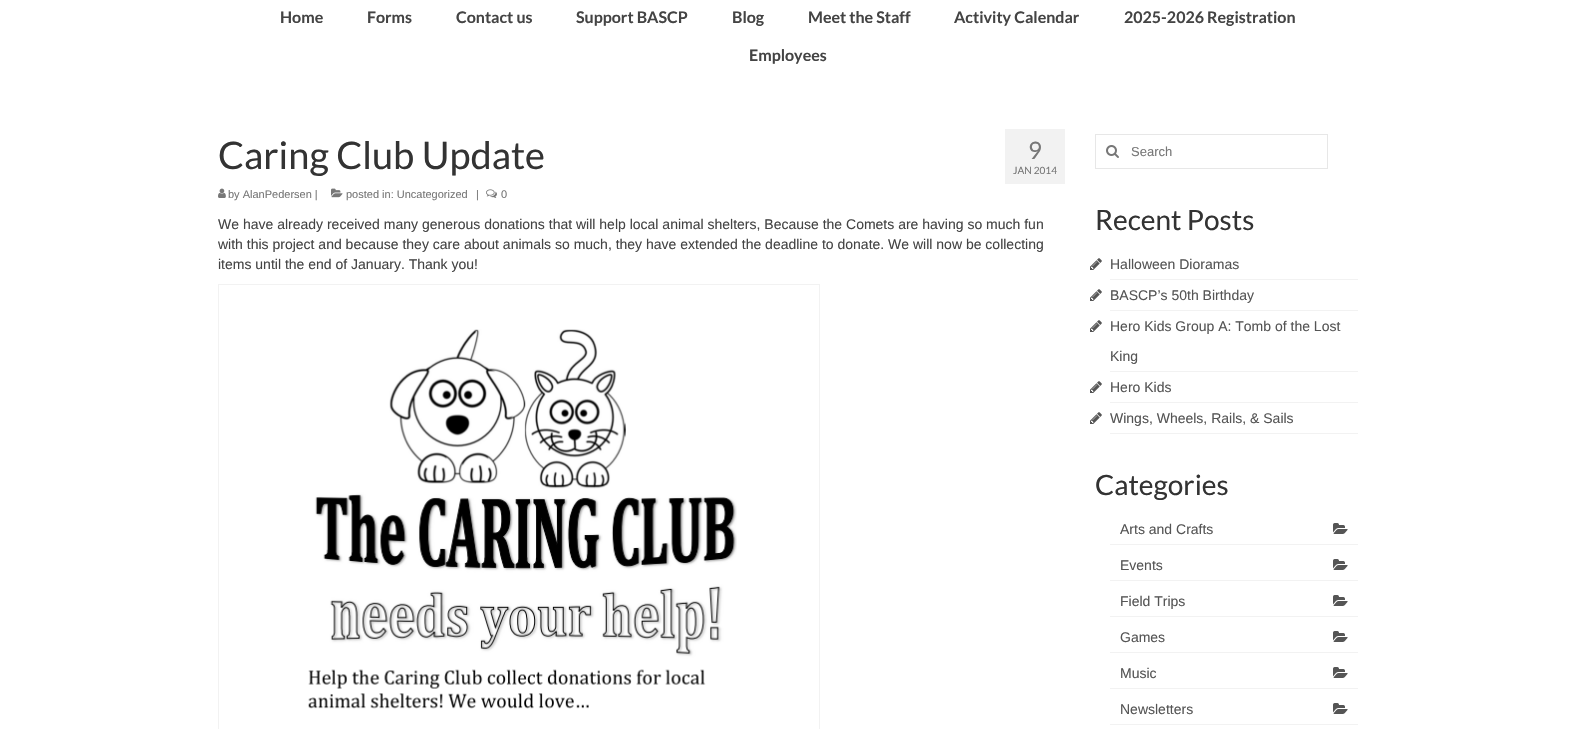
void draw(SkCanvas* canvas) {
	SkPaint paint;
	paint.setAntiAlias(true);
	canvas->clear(0xffffffff);
	SkFont f1(fontMgr->matchFamilyStyle("Lato", SkFontStyle::Bold()), 16);
	f1.setSubpixel(true);
	paint.setColor(0xff444444);
	canvas->drawString("Home", 280, 23, f1, paint);
	canvas->drawString("Forms", 367, 23, f1, paint);
	canvas->drawString("Contact us", 456, 23, f1, paint);
	canvas->drawString("Support BASCP", 576, 23, f1, paint);
	canvas->drawString("Blog", 732, 23, f1, paint);
	canvas->drawString("Meet the Staff", 808, 23, f1, paint);
	canvas->drawString("Activity Calendar", 954, 23, f1, paint);
	canvas->drawString("2025-2026 Registration", 1124, 23, f1, paint);
	canvas->drawString("Employees", 749, 61, f1, paint);
	SkFont f2(fontMgr->matchFamilyStyle("Lato", SkFontStyle::Normal()), 38);
	f2.setSubpixel(true);
	paint.setColor(0xff333333);
	canvas->drawString("Caring Club Update", 218, 169, f2, paint);
	canvas->drawImageRect(SkImages::DeferredFromEncodedData(SkData::MakeFromFileName("img1.png")), SkRect::MakeXYWH(218, 188, 8, 10), SkSamplingOptions());
	SkFont f3(fontMgr->matchFamilyStyle("Liberation Sans", SkFontStyle::Normal()), 11);
	f3.setSubpixel(true);
	paint.setColor(0xff777777);
	canvas->drawString("by AlanPedersen |", 228, 198, f3, paint);
	canvas->drawImageRect(SkImages::DeferredFromEncodedData(SkData::MakeFromFileName("img2.png")), SkRect::MakeXYWH(331, 188, 12, 10), SkSamplingOptions());
	canvas->drawString("posted in: Uncategorized", 346, 198, f3, paint);
	canvas->drawString("|", 476, 198, f3, paint);
	canvas->drawImageRect(SkImages::DeferredFromEncodedData(SkData::MakeFromFileName("img3.png")), SkRect::MakeXYWH(486, 189, 11, 9), SkSamplingOptions());
	canvas->drawString("0", 501, 198, f3, paint);
	paint.setColor(0xfff2f2f2);
	canvas->drawRect(SkRect::MakeXYWH(1005, 129, 60, 55), paint);
	SkFont f4(fontMgr->matchFamilyStyle("Lato", SkFontStyle::Normal()), 24);
	f4.setSubpixel(true);
	paint.setColor(0xff777777);
	canvas->drawString("9", 1028, 159, f4, paint);
	SkFont f5(fontMgr->matchFamilyStyle("Lato", SkFontStyle::Normal()), 10);
	f5.setSubpixel(true);
	canvas->drawString("JAN 2014", 1013, 174, f5, paint);
	SkFont f6(fontMgr->matchFamilyStyle("Liberation Sans", SkFontStyle::Normal()), 14);
	f6.setSubpixel(true);
	paint.setColor(0xff444444);
	canvas->drawString("We have already received many generous donations that will help local animal shelters, Because the Comets are having so much fun", 218, 229, f6, paint);
	canvas->drawString("with this project and because they care about animals so much, they have extended the deadline to donate. We will now be collecting", 218, 249, f6, paint);
	canvas->drawString("items until the end of January. Thank you!", 218, 269, f6, paint);
	paint.setStroke(true);
	paint.setStrokeWidth(1);
	paint.setColor(0xfff2f2f2);
	canvas->drawRect(SkRect::MakeXYWH(218.5, 284.5, 601, 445), paint);
	canvas->drawImageRect(SkImages::DeferredFromEncodedData(SkData::MakeFromFileName("img4.png")), SkRect::MakeXYWH(308, 329, 429, 380), SkSamplingOptions());
	paint.setColor(0xffe7e7e7);
	canvas->drawRect(SkRect::MakeXYWH(1095.5, 134.5, 232, 34), paint);
	canvas->drawImageRect(SkImages::DeferredFromEncodedData(SkData::MakeFromFileName("img5.png")), SkRect::MakeXYWH(1106, 145, 13, 13), SkSamplingOptions());
	SkFont f7(fontMgr->matchFamilyStyle("Liberation Sans", SkFontStyle::Normal()), 13);
	f7.setSubpixel(true);
	paint.setStroke(false);
	paint.setColor(0xff777777);
	canvas->drawString("Search", 1131, 156, f7, paint);
	SkFont f8(fontMgr->matchFamilyStyle("Lato", SkFontStyle::Normal()), 28);
	f8.setSubpixel(true);
	paint.setColor(0xff333333);
	canvas->drawString("Recent Posts", 1095, 230, f8, paint);
	paint.setColor(0xfff2f2f2);
	canvas->drawRect(SkRect::MakeXYWH(1110, 279, 248, 1), paint);
	canvas->drawImageRect(SkImages::DeferredFromEncodedData(SkData::MakeFromFileName("img6.png")), SkRect::MakeXYWH(1090, 258, 12, 12), SkSamplingOptions());
	paint.setColor(0xff555555);
	canvas->drawString("Halloween Dioramas", 1110, 269, f6, paint);
	paint.setColor(0xfff2f2f2);
	canvas->drawRect(SkRect::MakeXYWH(1110, 310, 248, 1), paint);
	canvas->drawImageRect(SkImages::DeferredFromEncodedData(SkData::MakeFromFileName("img6.png")), SkRect::MakeXYWH(1090, 289, 12, 12), SkSamplingOptions());
	paint.setColor(0xff555555);
	canvas->drawString("BASCP’s 50th Birthday", 1110, 300, f6, paint);
	paint.setColor(0xfff2f2f2);
	canvas->drawRect(SkRect::MakeXYWH(1110, 371, 248, 1), paint);
	canvas->drawImageRect(SkImages::DeferredFromEncodedData(SkData::MakeFromFileName("img6.png")), SkRect::MakeXYWH(1090, 320, 12, 12), SkSamplingOptions());
	paint.setColor(0xff555555);
	canvas->drawString("Hero Kids Group A: Tomb of the Lost", 1110, 331, f6, paint);
	canvas->drawString("King", 1110, 361, f6, paint);
	paint.setColor(0xfff2f2f2);
	canvas->drawRect(SkRect::MakeXYWH(1110, 402, 248, 1), paint);
	canvas->drawImageRect(SkImages::DeferredFromEncodedData(SkData::MakeFromFileName("img6.png")), SkRect::MakeXYWH(1090, 381, 12, 12), SkSamplingOptions());
	paint.setColor(0xff555555);
	canvas->drawString("Hero Kids", 1110, 392, f6, paint);
	paint.setColor(0xfff2f2f2);
	canvas->drawRect(SkRect::MakeXYWH(1110, 433, 248, 1), paint);
	canvas->drawImageRect(SkImages::DeferredFromEncodedData(SkData::MakeFromFileName("img6.png")), SkRect::MakeXYWH(1090, 412, 12, 12), SkSamplingOptions());
	paint.setColor(0xff555555);
	canvas->drawString("Wings, Wheels, Rails, & Sails", 1110, 423, f6, paint);
	paint.setColor(0xff333333);
	canvas->drawString("Categories", 1095, 495, f8, paint);
	paint.setColor(0xfff2f2f2);
	canvas->drawRect(SkRect::MakeXYWH(1110, 544, 248, 1), paint);
	paint.setColor(0xff555555);
	canvas->drawString("Arts and Crafts", 1120, 534, f6, paint);
	canvas->drawImageRect(SkImages::DeferredFromEncodedData(SkData::MakeFromFileName("img7.png")), SkRect::MakeXYWH(1333, 523, 15, 11), SkSamplingOptions());
	paint.setColor(0xfff2f2f2);
	canvas->drawRect(SkRect::MakeXYWH(1110, 580, 248, 1), paint);
	paint.setColor(0xff555555);
	canvas->drawString("Events", 1120, 570, f6, paint);
	canvas->drawImageRect(SkImages::DeferredFromEncodedData(SkData::MakeFromFileName("img7.png")), SkRect::MakeXYWH(1333, 559, 15, 11), SkSamplingOptions());
	paint.setColor(0xfff2f2f2);
	canvas->drawRect(SkRect::MakeXYWH(1110, 616, 248, 1), paint);
	paint.setColor(0xff555555);
	canvas->drawString("Field Trips", 1120, 606, f6, paint);
	canvas->drawImageRect(SkImages::DeferredFromEncodedData(SkData::MakeFromFileName("img7.png")), SkRect::MakeXYWH(1333, 595, 15, 11), SkSamplingOptions());
	paint.setColor(0xfff2f2f2);
	canvas->drawRect(SkRect::MakeXYWH(1110, 652, 248, 1), paint);
	paint.setColor(0xff555555);
	canvas->drawString("Games", 1120, 642, f6, paint);
	canvas->drawImageRect(SkImages::DeferredFromEncodedData(SkData::MakeFromFileName("img7.png")), SkRect::MakeXYWH(1333, 631, 15, 11), SkSamplingOptions());
	paint.setColor(0xfff2f2f2);
	canvas->drawRect(SkRect::MakeXYWH(1110, 688, 248, 1), paint);
	paint.setColor(0xff555555);
	canvas->drawString("Music", 1120, 678, f6, paint);
	canvas->drawImageRect(SkImages::DeferredFromEncodedData(SkData::MakeFromFileName("img7.png")), SkRect::MakeXYWH(1333, 667, 15, 11), SkSamplingOptions());
	paint.setColor(0xfff2f2f2);
	canvas->drawRect(SkRect::MakeXYWH(1110, 724, 248, 1), paint);
	paint.setColor(0xff555555);
	canvas->drawString("Newsletters", 1120, 714, f6, paint);
	canvas->drawImageRect(SkImages::DeferredFromEncodedData(SkData::MakeFromFileName("img7.png")), SkRect::MakeXYWH(1333, 703, 15, 11), SkSamplingOptions());
}
